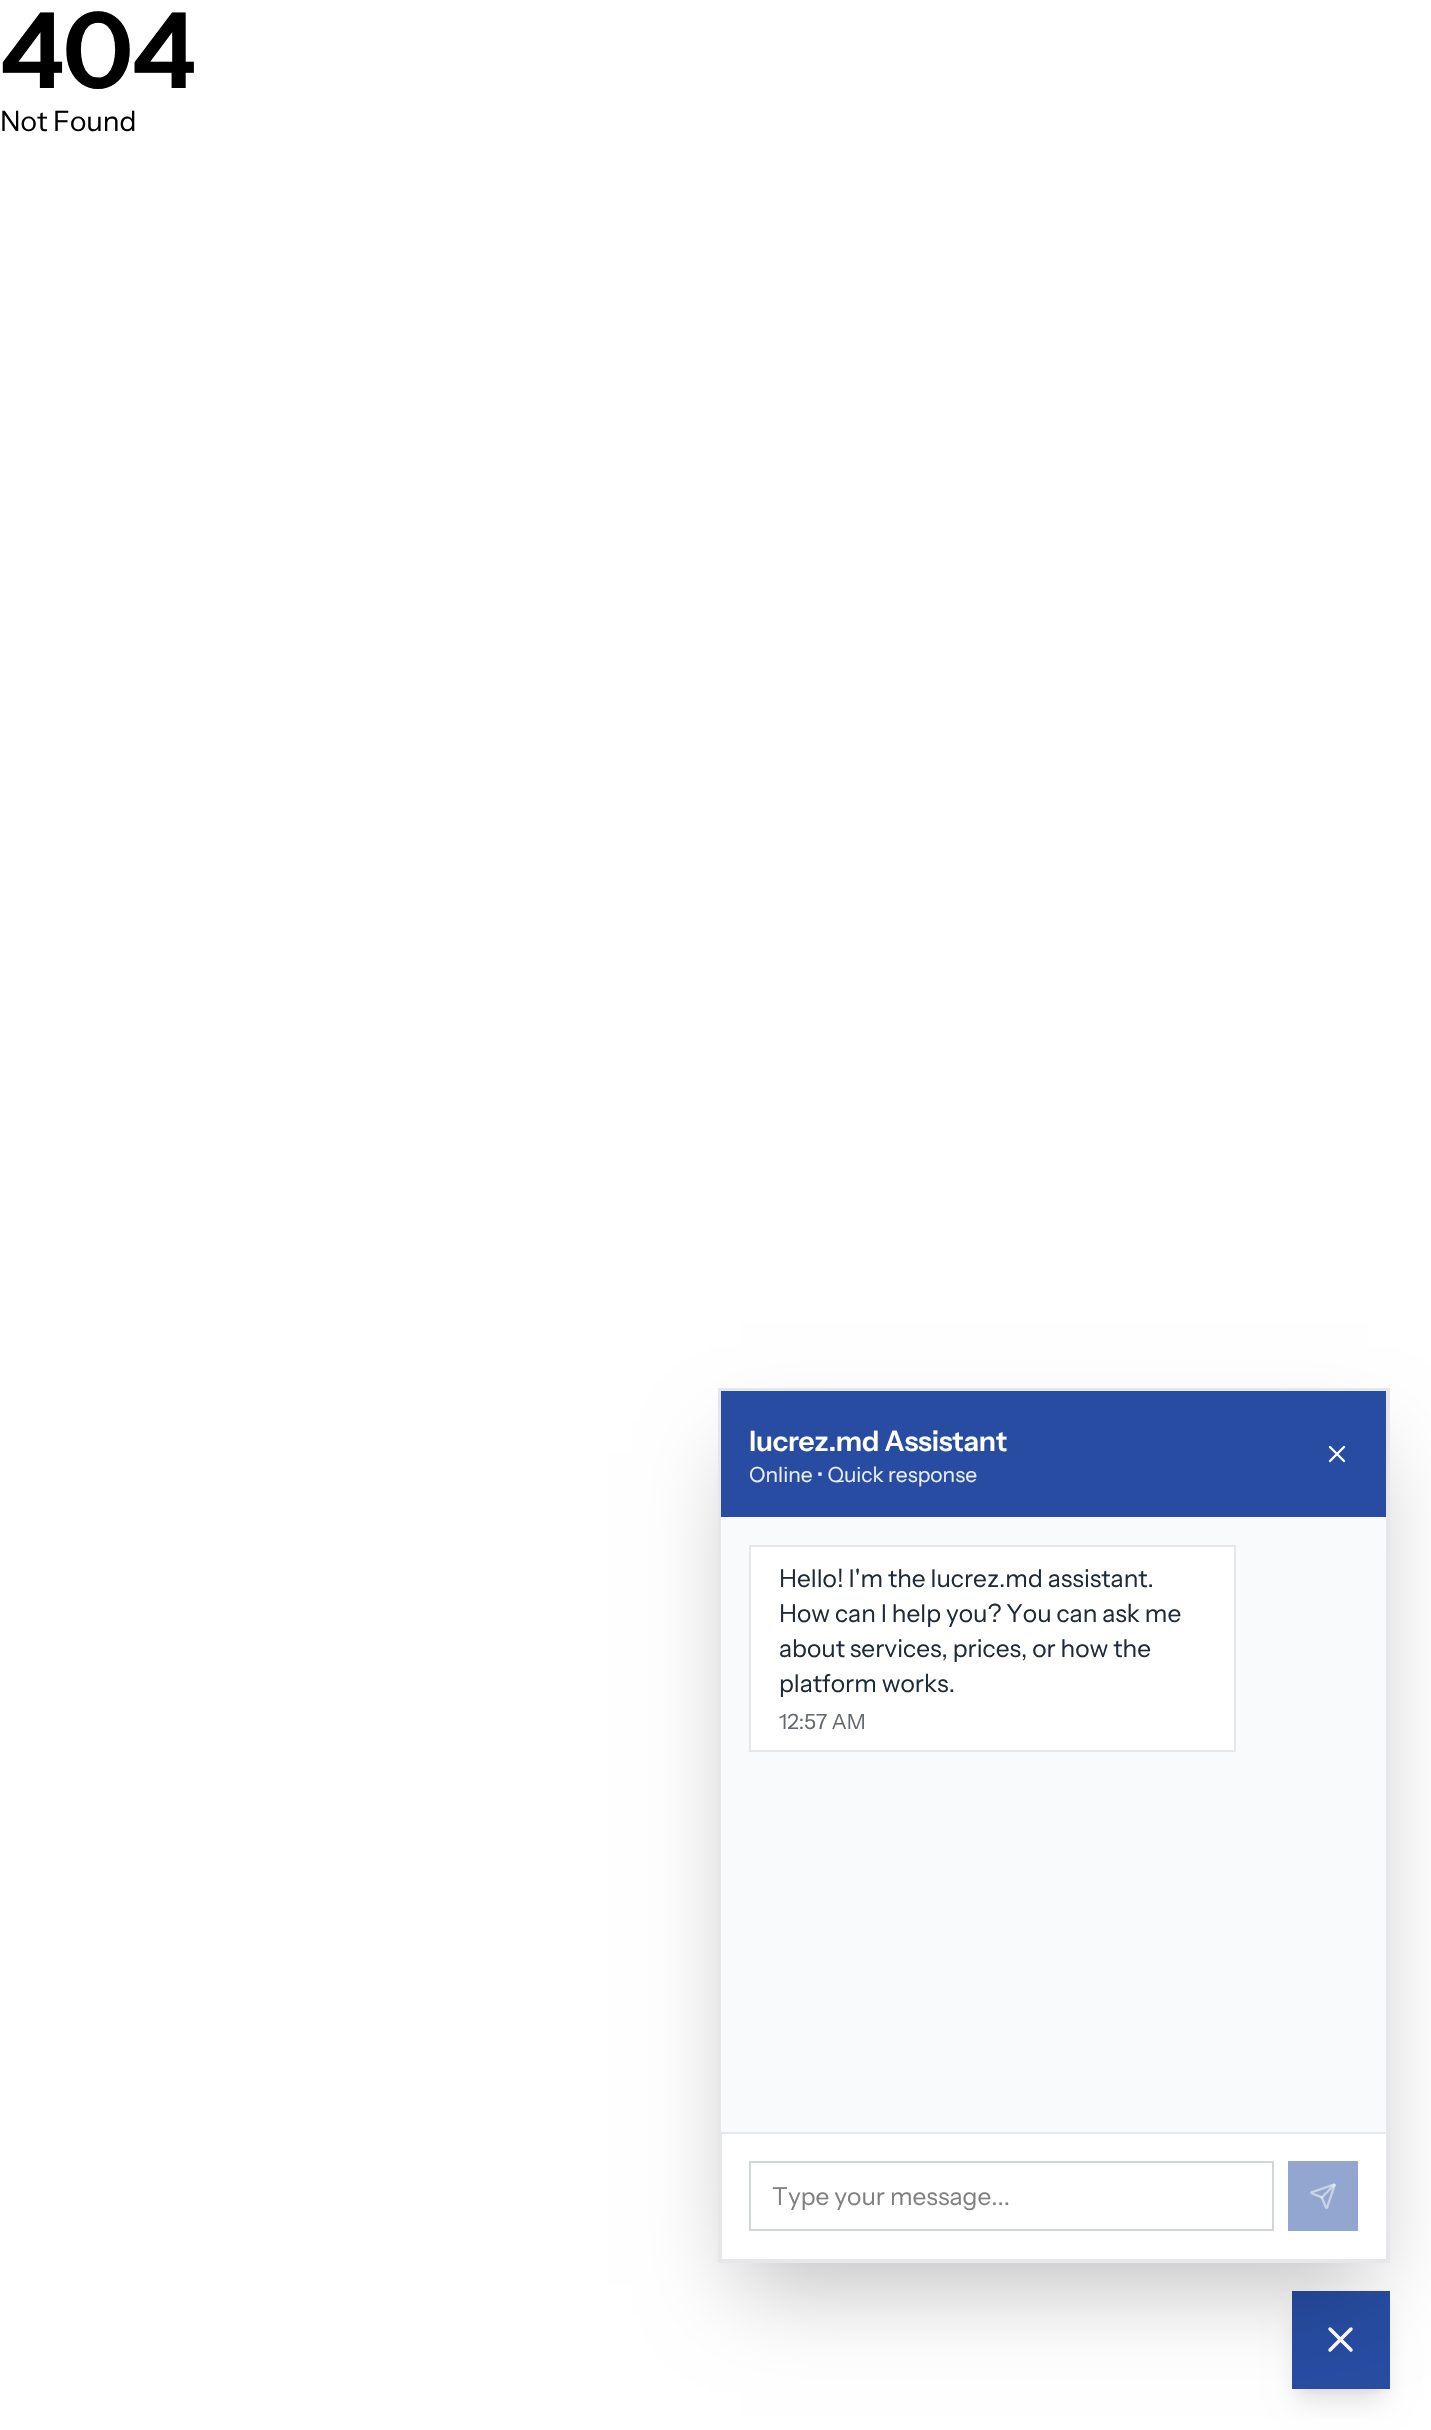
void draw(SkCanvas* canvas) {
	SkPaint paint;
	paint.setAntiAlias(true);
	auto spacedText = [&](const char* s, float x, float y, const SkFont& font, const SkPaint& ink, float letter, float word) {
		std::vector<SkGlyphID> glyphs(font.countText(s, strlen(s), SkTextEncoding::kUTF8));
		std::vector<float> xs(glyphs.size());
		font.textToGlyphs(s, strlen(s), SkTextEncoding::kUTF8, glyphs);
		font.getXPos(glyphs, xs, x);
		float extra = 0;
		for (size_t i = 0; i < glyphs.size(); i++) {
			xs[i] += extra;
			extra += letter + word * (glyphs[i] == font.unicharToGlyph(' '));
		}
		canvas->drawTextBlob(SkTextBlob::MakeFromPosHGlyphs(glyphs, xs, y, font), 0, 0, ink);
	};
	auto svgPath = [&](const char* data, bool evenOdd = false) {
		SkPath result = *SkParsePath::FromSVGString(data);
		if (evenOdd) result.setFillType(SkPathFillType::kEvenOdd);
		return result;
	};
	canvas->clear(0xffffffff);
	SkFont f1(fontMgr->matchFamilyStyle("Instrument Sans", SkFontStyle(600, SkFontStyle::kNormal_Width, SkFontStyle::kUpright_Slant)), 105);
	f1.setSubpixel(true);
	paint.setColor(0xff000000);
	spacedText("404", 0, 88, f1, paint, -2, 0);
	SkFont f2(fontMgr->matchFamilyStyle("Instrument Sans", SkFontStyle::Normal()), 28);
	f2.setSubpixel(true);
	canvas->drawString("Not Found", 0, 131, f2, paint);
	paint.setColor(0x1a000000);
	paint.setMaskFilter(SkMaskFilter::MakeBlur(kNormal_SkBlurStyle, 5));
	canvas->drawRect(SkRect::MakeXYWH(1299, 2305, 84, 84), paint);
	paint.setMaskFilter(nullptr);
	paint.setMaskFilter(SkMaskFilter::MakeBlur(kNormal_SkBlurStyle, 13));
	canvas->drawRect(SkRect::MakeXYWH(1297, 2314, 87, 87), paint);
	paint.setMaskFilter(nullptr);
	paint.setColor(0xff274ca1);
	canvas->drawRect(SkRect::MakeXYWH(1292, 2291, 98, 98), paint);
	paint.setStroke(true);
	paint.setStrokeWidth(3.5);
	paint.setStrokeCap(SkPaint::kRound_Cap);
	paint.setStrokeJoin(SkPaint::kRound_Join);
	paint.setColor(0xffffffff);
	canvas->drawPath(svgPath("M1351 2329L1330 2350M1330 2329L1351 2350"), paint);
	paint.setStroke(false);
	paint.setColor(0x40000000);
	paint.setMaskFilter(SkMaskFilter::MakeBlur(kNormal_SkBlurStyle, 44));
	canvas->drawRect(SkRect::MakeXYWH(739, 1453, 630, 833), paint);
	paint.setMaskFilter(nullptr);
	paint.setColor(0xffffffff);
	canvas->drawRect(SkRect::MakeXYWH(722, 2134, 664, 125), paint);
	paint.setStroke(true);
	paint.setStrokeWidth(4);
	paint.setStrokeCap(SkPaint::kButt_Cap);
	paint.setStrokeJoin(SkPaint::kMiter_Join);
	paint.setColor(0xffe5e7eb);
	canvas->drawRect(SkRect::MakeXYWH(720, 1390, 668, 871), paint);
	paint.setStroke(false);
	paint.setColor(0xff274ca1);
	canvas->drawRect(SkRect::MakeXYWH(721, 1391, 665, 126), paint);
	SkFont f3(fontMgr->matchFamilyStyle("Instrument Sans", SkFontStyle(600, SkFontStyle::kNormal_Width, SkFontStyle::kUpright_Slant)), 28);
	f3.setSubpixel(true);
	paint.setColor(0xffffffff);
	spacedText("lucrez.md Assistant", 749, 1451, f3, paint, -0.25, 0);
	SkFont f4(fontMgr->matchFamilyStyle("Instrument Sans", SkFontStyle::Normal()), 21);
	f4.setSubpixel(true);
	paint.setColor(0xffe9edf6);
	canvas->drawString("Online • Quick response", 749, 1482, f4, paint);
	paint.setStroke(true);
	paint.setStrokeWidth(2.3);
	paint.setStrokeCap(SkPaint::kRound_Cap);
	paint.setStrokeJoin(SkPaint::kRound_Join);
	paint.setColor(0xffffffff);
	canvas->drawPath(svgPath("M1344 1447L1330 1461M1330 1447L1344 1461"), paint);
	paint.setStroke(false);
	paint.setColor(0xfff9fafb);
	canvas->drawRect(SkRect::MakeXYWH(721, 1517, 665, 615), paint);
	paint.setColor(0xffffffff);
	canvas->drawRect(SkRect::MakeXYWH(750, 1546, 485, 205), paint);
	paint.setStroke(true);
	paint.setStrokeWidth(2);
	paint.setStrokeCap(SkPaint::kButt_Cap);
	paint.setStrokeJoin(SkPaint::kMiter_Join);
	paint.setColor(0xffe5e7eb);
	canvas->drawRect(SkRect::MakeXYWH(750, 1546, 485, 205), paint);
	SkFont f5(fontMgr->matchFamilyStyle("Instrument Sans", SkFontStyle::Normal()), 24.5);
	f5.setSubpixel(true);
	paint.setStroke(false);
	paint.setColor(0xff1e2939);
	canvas->drawString("Hello! I'm the lucrez.md assistant.", 779, 1587, f5, paint);
	canvas->drawString("How can I help you? You can ask me", 779, 1622, f5, paint);
	canvas->drawString("about services, prices, or how the", 779, 1657, f5, paint);
	canvas->drawString("platform works.", 779, 1692, f5, paint);
	paint.setColor(0xff626974);
	canvas->drawString("12:57 AM", 779, 1729, f4, paint);
	paint.setColor(0xffe5e7eb);
	canvas->drawRect(SkRect::MakeXYWH(721, 2132, 665, 2), paint);
	paint.setStroke(true);
	paint.setColor(0xffd1d5dc);
	canvas->drawRect(SkRect::MakeXYWH(750, 2162, 523, 68), paint);
	paint.setStroke(false);
	paint.setColor(0xff808080);
	canvas->drawString("Type your message...", 772, 2205, f5, paint);
	paint.setColor(0xff93a6d0);
	canvas->drawRect(SkRect::MakeXYWH(1288, 2161, 70, 70), paint);
	canvas->drawImageRect(SkImages::DeferredFromEncodedData(SkData::MakeFromFileName("img1.png")), SkRect::MakeXYWH(1310, 2183, 26, 26), SkSamplingOptions());
}
